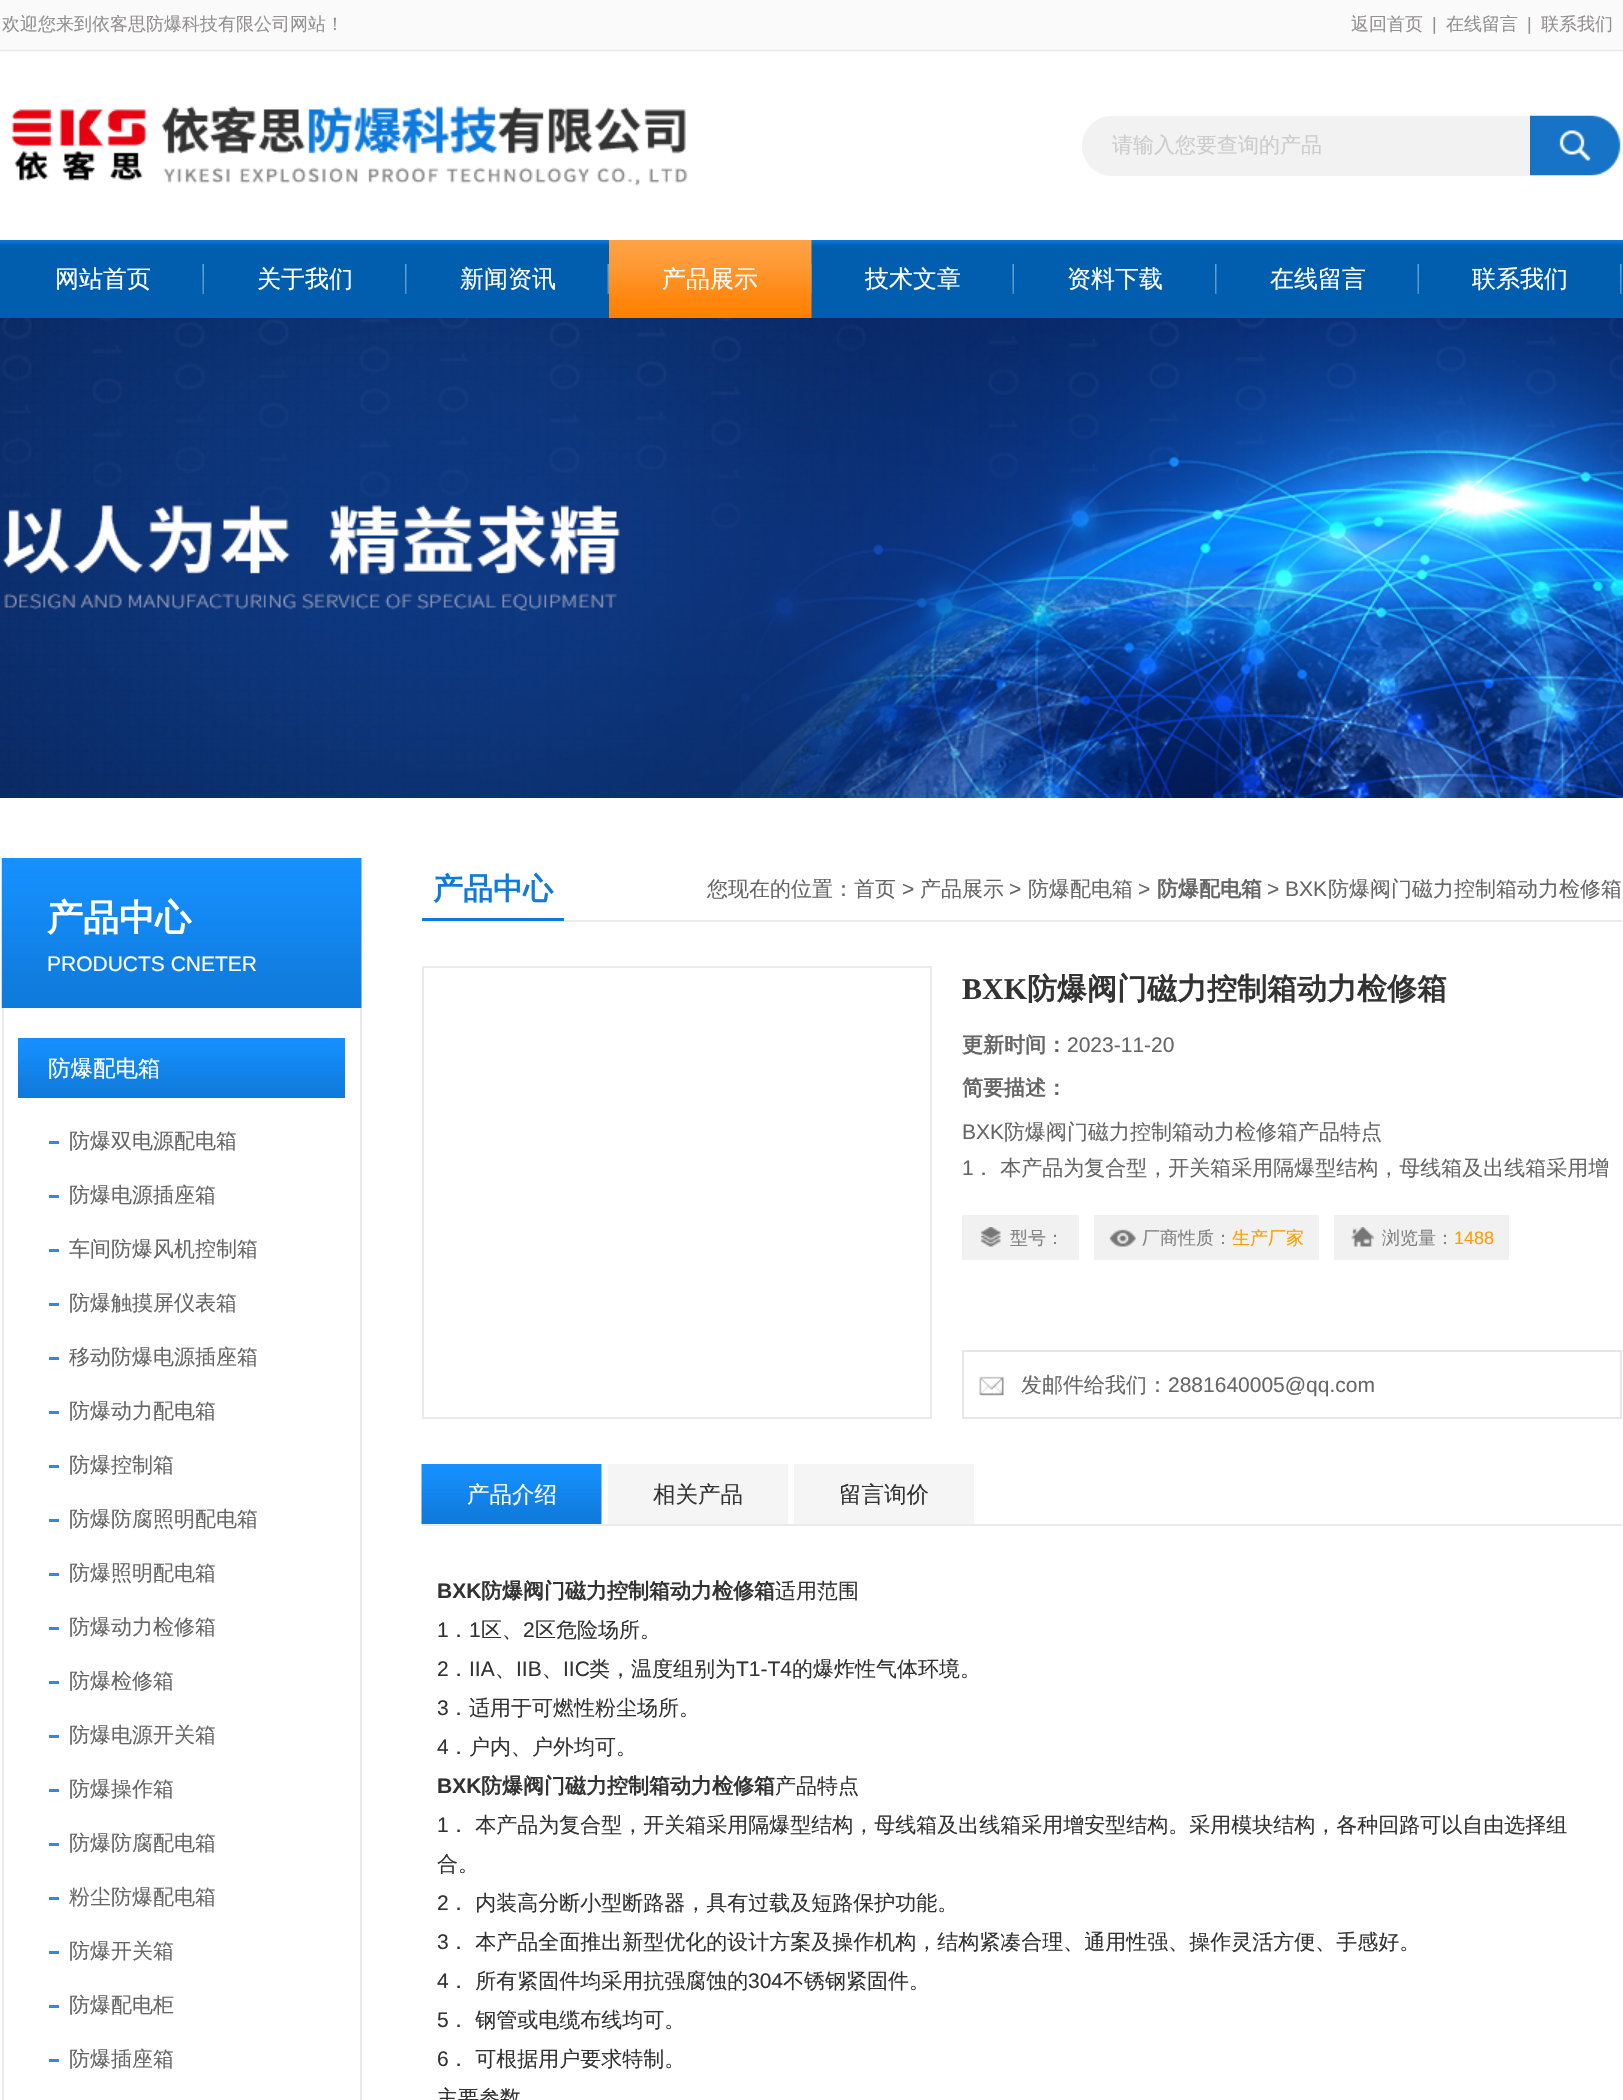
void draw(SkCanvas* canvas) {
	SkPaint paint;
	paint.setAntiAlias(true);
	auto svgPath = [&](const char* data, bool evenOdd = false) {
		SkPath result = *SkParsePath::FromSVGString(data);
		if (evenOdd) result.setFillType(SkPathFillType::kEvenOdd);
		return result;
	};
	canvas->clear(0xffffffff);
	canvas->drawImageRect(SkImages::DeferredFromEncodedData(SkData::MakeFromFileName("img1.png")), SkRect::MakeXYWH(0, 0, 1623, 52), SkSamplingOptions());
	SkFont f1(fontMgr->matchFamilyStyle("WenQuanYi Zen Hei", SkFontStyle(500, SkFontStyle::kNormal_Width, SkFontStyle::kUpright_Slant)), 18);
	f1.setSubpixel(true);
	paint.setColor(0xff929091);
	canvas->drawString("欢迎您来到依客思防爆科技有限公司网站！", 2, 30, f1, paint);
	canvas->drawString("返回首页", 1351, 30, f1, paint);
	SkFont f2(fontMgr->matchFamilyStyle("Liberation Sans", SkFontStyle::Normal()), 18);
	f2.setSubpixel(true);
	canvas->drawString("|", 1432, 30, f2, paint);
	canvas->drawString("在线留言", 1446, 30, f1, paint);
	canvas->drawString("|", 1527, 30, f2, paint);
	canvas->drawString("联系我们", 1541, 30, f1, paint);
	canvas->drawImageRect(SkImages::DeferredFromEncodedData(SkData::MakeFromFileName("img2.png")), SkRect::MakeXYWH(11, 106, 677, 80), SkSamplingOptions());
	paint.setColor(0xfff2f2f2);
	canvas->drawPath(svgPath("M1112 116H1530V176H1112C1095.5 176 1082 162.5 1082 146C1082 129.5 1095.5 116 1112 116Z"), paint);
	SkFont f3(fontMgr->matchFamilyStyle("WenQuanYi Zen Hei", SkFontStyle(500, SkFontStyle::kNormal_Width, SkFontStyle::kUpright_Slant)), 21);
	f3.setSubpixel(true);
	paint.setColor(0xffcccccc);
	canvas->drawString("请输入您要查询的产品", 1112, 152, f3, paint);
	canvas->drawImageRect(SkImages::DeferredFromEncodedData(SkData::MakeFromFileName("img3.png")), SkRect::MakeXYWH(1530, 115, 91, 61), SkSamplingOptions());
	canvas->drawImageRect(SkImages::DeferredFromEncodedData(SkData::MakeFromFileName("img4.png")), SkRect::MakeXYWH(0, 240, 1623, 78), SkSamplingOptions());
	canvas->drawImageRect(SkImages::DeferredFromEncodedData(SkData::MakeFromFileName("img5.png")), SkRect::MakeXYWH(202, 264, 2, 30), SkSamplingOptions());
	SkFont f4(fontMgr->matchFamilyStyle("WenQuanYi Zen Hei", SkFontStyle(500, SkFontStyle::kNormal_Width, SkFontStyle::kUpright_Slant)), 24);
	f4.setSubpixel(true);
	paint.setColor(0xffffffff);
	canvas->drawString("网站首页", 55, 287, f4, paint);
	canvas->drawImageRect(SkImages::DeferredFromEncodedData(SkData::MakeFromFileName("img6.png")), SkRect::MakeXYWH(405, 264, 2, 30), SkSamplingOptions());
	canvas->drawString("关于我们", 257, 287, f4, paint);
	canvas->drawImageRect(SkImages::DeferredFromEncodedData(SkData::MakeFromFileName("img5.png")), SkRect::MakeXYWH(607, 264, 2, 30), SkSamplingOptions());
	canvas->drawString("新闻资讯", 460, 287, f4, paint);
	canvas->drawImageRect(SkImages::DeferredFromEncodedData(SkData::MakeFromFileName("img7.png")), SkRect::MakeXYWH(811, 264, 1, 30), SkSamplingOptions());
	canvas->drawImageRect(SkImages::DeferredFromEncodedData(SkData::MakeFromFileName("img8.png")), SkRect::MakeXYWH(609, 240, 203, 78), SkSamplingOptions());
	canvas->drawString("产品展示", 662, 287, f4, paint);
	canvas->drawImageRect(SkImages::DeferredFromEncodedData(SkData::MakeFromFileName("img5.png")), SkRect::MakeXYWH(1012, 264, 2, 30), SkSamplingOptions());
	canvas->drawString("技术文章", 865, 287, f4, paint);
	canvas->drawImageRect(SkImages::DeferredFromEncodedData(SkData::MakeFromFileName("img6.png")), SkRect::MakeXYWH(1215, 264, 2, 30), SkSamplingOptions());
	canvas->drawString("资料下载", 1067, 287, f4, paint);
	canvas->drawImageRect(SkImages::DeferredFromEncodedData(SkData::MakeFromFileName("img5.png")), SkRect::MakeXYWH(1417, 264, 2, 30), SkSamplingOptions());
	canvas->drawString("在线留言", 1270, 287, f4, paint);
	canvas->drawImageRect(SkImages::DeferredFromEncodedData(SkData::MakeFromFileName("img6.png")), SkRect::MakeXYWH(1620, 264, 2, 30), SkSamplingOptions());
	canvas->drawString("联系我们", 1472, 287, f4, paint);
	canvas->drawImageRect(SkImages::DeferredFromEncodedData(SkData::MakeFromFileName("img9.png")), SkRect::MakeXYWH(0, 318, 1623, 480), SkSamplingOptions());
	canvas->drawImageRect(SkImages::DeferredFromEncodedData(SkData::MakeFromFileName("img10.png")), SkRect::MakeXYWH(1, 858, 361, 150), SkSamplingOptions());
	SkFont f5(fontMgr->matchFamilyStyle("WenQuanYi Zen Hei", SkFontStyle::Bold()), 36);
	f5.setSubpixel(true);
	canvas->drawString("产品中心", 47, 930, f5, paint);
	SkFont f6(fontMgr->matchFamilyStyle("Liberation Sans", SkFontStyle::Normal()), 21);
	f6.setSubpixel(true);
	canvas->drawString("PRODUCTS CNETER", 47, 971, f6, paint);
	paint.setColor(0xffeaeaea);
	canvas->drawRect(SkRect::MakeXYWH(360, 1008, 2, 1092), paint);
	canvas->drawRect(SkRect::MakeXYWH(2, 1008, 2, 1092), paint);
	canvas->drawImageRect(SkImages::DeferredFromEncodedData(SkData::MakeFromFileName("img11.png")), SkRect::MakeXYWH(18, 1038, 327, 60), SkSamplingOptions());
	SkFont f7(fontMgr->matchFamilyStyle("WenQuanYi Zen Hei", SkFontStyle(500, SkFontStyle::kNormal_Width, SkFontStyle::kUpright_Slant)), 22.5);
	f7.setSubpixel(true);
	paint.setColor(0xffffffff);
	canvas->drawString("防爆配电箱", 48, 1076, f7, paint);
	paint.setColor(0xff2e8adf);
	canvas->drawRect(SkRect::MakeXYWH(49, 1141, 10, 3), paint);
	paint.setColor(0xff666666);
	canvas->drawString("防爆双电源配电箱", 69, 1148, f3, paint);
	paint.setColor(0xff2e8adf);
	canvas->drawRect(SkRect::MakeXYWH(49, 1195, 10, 3), paint);
	paint.setColor(0xff666666);
	canvas->drawString("防爆电源插座箱", 69, 1202, f3, paint);
	paint.setColor(0xff2e8adf);
	canvas->drawRect(SkRect::MakeXYWH(49, 1249, 10, 3), paint);
	paint.setColor(0xff666666);
	canvas->drawString("车间防爆风机控制箱", 69, 1256, f3, paint);
	paint.setColor(0xff2e8adf);
	canvas->drawRect(SkRect::MakeXYWH(49, 1303, 10, 3), paint);
	paint.setColor(0xff666666);
	canvas->drawString("防爆触摸屏仪表箱", 69, 1310, f3, paint);
	paint.setColor(0xff2e8adf);
	canvas->drawRect(SkRect::MakeXYWH(49, 1357, 10, 3), paint);
	paint.setColor(0xff666666);
	canvas->drawString("移动防爆电源插座箱", 69, 1364, f3, paint);
	paint.setColor(0xff2e8adf);
	canvas->drawRect(SkRect::MakeXYWH(49, 1411, 10, 3), paint);
	paint.setColor(0xff666666);
	canvas->drawString("防爆动力配电箱", 69, 1418, f3, paint);
	paint.setColor(0xff2e8adf);
	canvas->drawRect(SkRect::MakeXYWH(49, 1465, 10, 3), paint);
	paint.setColor(0xff666666);
	canvas->drawString("防爆控制箱", 69, 1472, f3, paint);
	paint.setColor(0xff2e8adf);
	canvas->drawRect(SkRect::MakeXYWH(49, 1519, 10, 3), paint);
	paint.setColor(0xff666666);
	canvas->drawString("防爆防腐照明配电箱", 69, 1526, f3, paint);
	paint.setColor(0xff2e8adf);
	canvas->drawRect(SkRect::MakeXYWH(49, 1573, 10, 3), paint);
	paint.setColor(0xff666666);
	canvas->drawString("防爆照明配电箱", 69, 1580, f3, paint);
	paint.setColor(0xff2e8adf);
	canvas->drawRect(SkRect::MakeXYWH(49, 1627, 10, 3), paint);
	paint.setColor(0xff666666);
	canvas->drawString("防爆动力检修箱", 69, 1634, f3, paint);
	paint.setColor(0xff2e8adf);
	canvas->drawRect(SkRect::MakeXYWH(49, 1681, 10, 3), paint);
	paint.setColor(0xff666666);
	canvas->drawString("防爆检修箱", 69, 1688, f3, paint);
	paint.setColor(0xff2e8adf);
	canvas->drawRect(SkRect::MakeXYWH(49, 1735, 10, 3), paint);
	paint.setColor(0xff666666);
	canvas->drawString("防爆电源开关箱", 69, 1742, f3, paint);
	paint.setColor(0xff2e8adf);
	canvas->drawRect(SkRect::MakeXYWH(49, 1789, 10, 3), paint);
	paint.setColor(0xff666666);
	canvas->drawString("防爆操作箱", 69, 1796, f3, paint);
	paint.setColor(0xff2e8adf);
	canvas->drawRect(SkRect::MakeXYWH(49, 1843, 10, 3), paint);
	paint.setColor(0xff666666);
	canvas->drawString("防爆防腐配电箱", 69, 1850, f3, paint);
	paint.setColor(0xff2e8adf);
	canvas->drawRect(SkRect::MakeXYWH(49, 1897, 10, 3), paint);
	paint.setColor(0xff666666);
	canvas->drawString("粉尘防爆配电箱", 69, 1904, f3, paint);
	paint.setColor(0xff2e8adf);
	canvas->drawRect(SkRect::MakeXYWH(49, 1951, 10, 3), paint);
	paint.setColor(0xff666666);
	canvas->drawString("防爆开关箱", 69, 1958, f3, paint);
	paint.setColor(0xff2e8adf);
	canvas->drawRect(SkRect::MakeXYWH(49, 2005, 10, 3), paint);
	paint.setColor(0xff666666);
	canvas->drawString("防爆配电柜", 69, 2012, f3, paint);
	paint.setColor(0xff2e8adf);
	canvas->drawRect(SkRect::MakeXYWH(49, 2059, 10, 3), paint);
	paint.setColor(0xff666666);
	canvas->drawString("防爆插座箱", 69, 2066, f3, paint);
	paint.setColor(0xffeaeaea);
	canvas->drawRect(SkRect::MakeXYWH(422, 920, 1200, 2), paint);
	paint.setColor(0xff0f7adb);
	canvas->drawRect(SkRect::MakeXYWH(422, 918, 142, 3), paint);
	SkFont f8(fontMgr->matchFamilyStyle("WenQuanYi Zen Hei", SkFontStyle::Bold()), 30);
	f8.setSubpixel(true);
	canvas->drawString("产品中心", 433, 899, f8, paint);
	paint.setColor(0xff666666);
	canvas->drawString("您现在的位置：首页", 707, 896, f3, paint);
	canvas->drawString(">", 902, 896, f6, paint);
	canvas->drawString("产品展示", 920, 896, f3, paint);
	canvas->drawString(">", 1009, 896, f6, paint);
	canvas->drawString("防爆配电箱", 1028, 896, f3, paint);
	canvas->drawString(">", 1138, 896, f6, paint);
	SkFont f9(fontMgr->matchFamilyStyle("WenQuanYi Zen Hei", SkFontStyle::Bold()), 21);
	f9.setSubpixel(true);
	canvas->drawString("防爆配电箱", 1157, 896, f9, paint);
	canvas->drawString("> BXK", 1267, 896, f6, paint);
	canvas->drawString("防爆阀门磁力控制箱动力检修箱", 1328, 896, f3, paint);
	paint.setStroke(true);
	paint.setStrokeWidth(2);
	paint.setColor(0xffeaeaea);
	canvas->drawRect(SkRect::MakeXYWH(423, 967, 508, 451), paint);
	SkFont f10(fontMgr->matchFamilyStyle("Liberation Serif", SkFontStyle::Bold()), 30);
	f10.setSubpixel(true);
	paint.setStroke(false);
	paint.setColor(0xff333333);
	canvas->drawString("BXK", 962, 999, f10, paint);
	canvas->drawString("防爆阀门磁力控制箱动力检修箱", 1027, 999, f8, paint);
	paint.setColor(0xff666666);
	canvas->drawString("更新时间：", 962, 1052, f9, paint);
	canvas->drawString("2023-11-20", 1067, 1052, f6, paint);
	canvas->drawString("简要描述：", 962, 1095, f9, paint);
	canvas->drawString("BXK", 962, 1139, f6, paint);
	canvas->drawString("防爆阀门磁力控制箱动力检修箱产品特点", 1004, 1139, f3, paint);
	canvas->drawString("1", 962, 1175, f6, paint);
	canvas->drawString("． 本产品为复合型，开关箱采用隔爆型结构，母线箱及出线箱采用增", 973, 1175, f3, paint);
	paint.setColor(0xfff1f1f1);
	canvas->drawRect(SkRect::MakeXYWH(962, 1215, 117, 45), paint);
	canvas->drawImageRect(SkImages::DeferredFromEncodedData(SkData::MakeFromFileName("img12.png")), SkRect::MakeXYWH(980, 1227, 21, 20), SkSamplingOptions());
	paint.setColor(0xff828282);
	canvas->drawString("型号：", 1010, 1244, f1, paint);
	paint.setColor(0xfff1f1f1);
	canvas->drawRect(SkRect::MakeXYWH(1094, 1215, 225, 45), paint);
	canvas->drawImageRect(SkImages::DeferredFromEncodedData(SkData::MakeFromFileName("img13.png")), SkRect::MakeXYWH(1109, 1229, 27, 18), SkSamplingOptions());
	paint.setColor(0xff828282);
	canvas->drawString("厂商性质：", 1142, 1244, f1, paint);
	paint.setColor(0xffff9c00);
	canvas->drawString("生产厂家", 1232, 1244, f1, paint);
	paint.setColor(0xfff1f1f1);
	canvas->drawRect(SkRect::MakeXYWH(1334, 1215, 175, 45), paint);
	canvas->drawImageRect(SkImages::DeferredFromEncodedData(SkData::MakeFromFileName("img14.png")), SkRect::MakeXYWH(1351, 1227, 24, 20), SkSamplingOptions());
	paint.setColor(0xff828282);
	canvas->drawString("浏览量：", 1382, 1244, f1, paint);
	paint.setColor(0xffff9c00);
	canvas->drawString("1488", 1454, 1244, f2, paint);
	paint.setStroke(true);
	paint.setColor(0xffe6e6e6);
	canvas->drawRect(SkRect::MakeXYWH(963, 1351, 658, 67), paint);
	canvas->drawImageRect(SkImages::DeferredFromEncodedData(SkData::MakeFromFileName("img15.png")), SkRect::MakeXYWH(979, 1376, 25, 20), SkSamplingOptions());
	paint.setStroke(false);
	paint.setColor(0xff666666);
	canvas->drawString("发邮件给我们：", 1021, 1392, f3, paint);
	canvas->drawString("2881640005@qq.com", 1168, 1392, f6, paint);
	paint.setColor(0xffeaeaea);
	canvas->drawRect(SkRect::MakeXYWH(422, 1524, 1200, 2), paint);
	canvas->drawImageRect(SkImages::DeferredFromEncodedData(SkData::MakeFromFileName("img16.png")), SkRect::MakeXYWH(421, 1464, 181, 60), SkSamplingOptions());
	paint.setColor(0xffffffff);
	canvas->drawString("产品介绍", 467, 1502, f7, paint);
	paint.setColor(0xfff5f5f5);
	canvas->drawRect(SkRect::MakeXYWH(608, 1464, 180, 60), paint);
	paint.setColor(0xff333333);
	canvas->drawString("相关产品", 653, 1502, f7, paint);
	paint.setColor(0xfff5f5f5);
	canvas->drawRect(SkRect::MakeXYWH(794, 1464, 180, 60), paint);
	paint.setColor(0xff333333);
	canvas->drawString("留言询价", 839, 1502, f7, paint);
	SkFont f11(fontMgr->matchFamilyStyle("Liberation Sans", SkFontStyle::Bold()), 21);
	f11.setSubpixel(true);
	canvas->drawString("BXK", 437, 1598, f11, paint);
	canvas->drawString("防爆阀门磁力控制箱动力检修箱", 481, 1598, f9, paint);
	canvas->drawString("适用范围", 775, 1598, f3, paint);
	canvas->drawString("1", 437, 1637, f6, paint);
	canvas->drawString("．", 448, 1637, f3, paint);
	canvas->drawString("1", 469, 1637, f6, paint);
	canvas->drawString("区、", 481, 1637, f3, paint);
	canvas->drawString("2", 523, 1637, f6, paint);
	canvas->drawString("区危险场所。", 535, 1637, f3, paint);
	canvas->drawString("2", 437, 1676, f6, paint);
	canvas->drawString("．", 448, 1676, f3, paint);
	canvas->drawString("IIA", 469, 1676, f6, paint);
	canvas->drawString("、", 495, 1676, f3, paint);
	canvas->drawString("IIB", 516, 1676, f6, paint);
	canvas->drawString("、", 542, 1676, f3, paint);
	canvas->drawString("IIC", 563, 1676, f6, paint);
	canvas->drawString("类，温度组别为", 589, 1676, f3, paint);
	canvas->drawString("T1-T4", 736, 1676, f6, paint);
	canvas->drawString("的爆炸性气体环境。", 792, 1676, f3, paint);
	canvas->drawString("3", 437, 1715, f6, paint);
	canvas->drawString("．适用于可燃性粉尘场所。", 448, 1715, f3, paint);
	canvas->drawString("4", 437, 1754, f6, paint);
	canvas->drawString("．户内、户外均可。", 448, 1754, f3, paint);
	canvas->drawString("BXK", 437, 1793, f11, paint);
	canvas->drawString("防爆阀门磁力控制箱动力检修箱", 481, 1793, f9, paint);
	canvas->drawString("产品特点", 775, 1793, f3, paint);
	canvas->drawString("1", 437, 1832, f6, paint);
	canvas->drawString("． 本产品为复合型，开关箱采用隔爆型结构，母线箱及出线箱采用增安型结构。采用模块结构，各种回路可以自由选择组", 448, 1832, f3, paint);
	canvas->drawString("合。", 437, 1871, f3, paint);
	canvas->drawString("2", 437, 1910, f6, paint);
	canvas->drawString("． 内装高分断小型断路器，具有过载及短路保护功能。", 448, 1910, f3, paint);
	canvas->drawString("3", 437, 1949, f6, paint);
	canvas->drawString("． 本产品全面推出新型优化的设计方案及操作机构，结构紧凑合理、通用性强、操作灵活方便、手感好。", 448, 1949, f3, paint);
	canvas->drawString("4", 437, 1988, f6, paint);
	canvas->drawString("． 所有紧固件均采用抗强腐蚀的", 448, 1988, f3, paint);
	canvas->drawString("304", 748, 1988, f6, paint);
	canvas->drawString("不锈钢紧固件。", 783, 1988, f3, paint);
	canvas->drawString("5", 437, 2027, f6, paint);
	canvas->drawString("． 钢管或电缆布线均可。", 448, 2027, f3, paint);
	canvas->drawString("6", 437, 2066, f6, paint);
	canvas->drawString("． 可根据用户要求特制。", 448, 2066, f3, paint);
	canvas->drawString("主要参数", 437, 2105, f3, paint);
}
